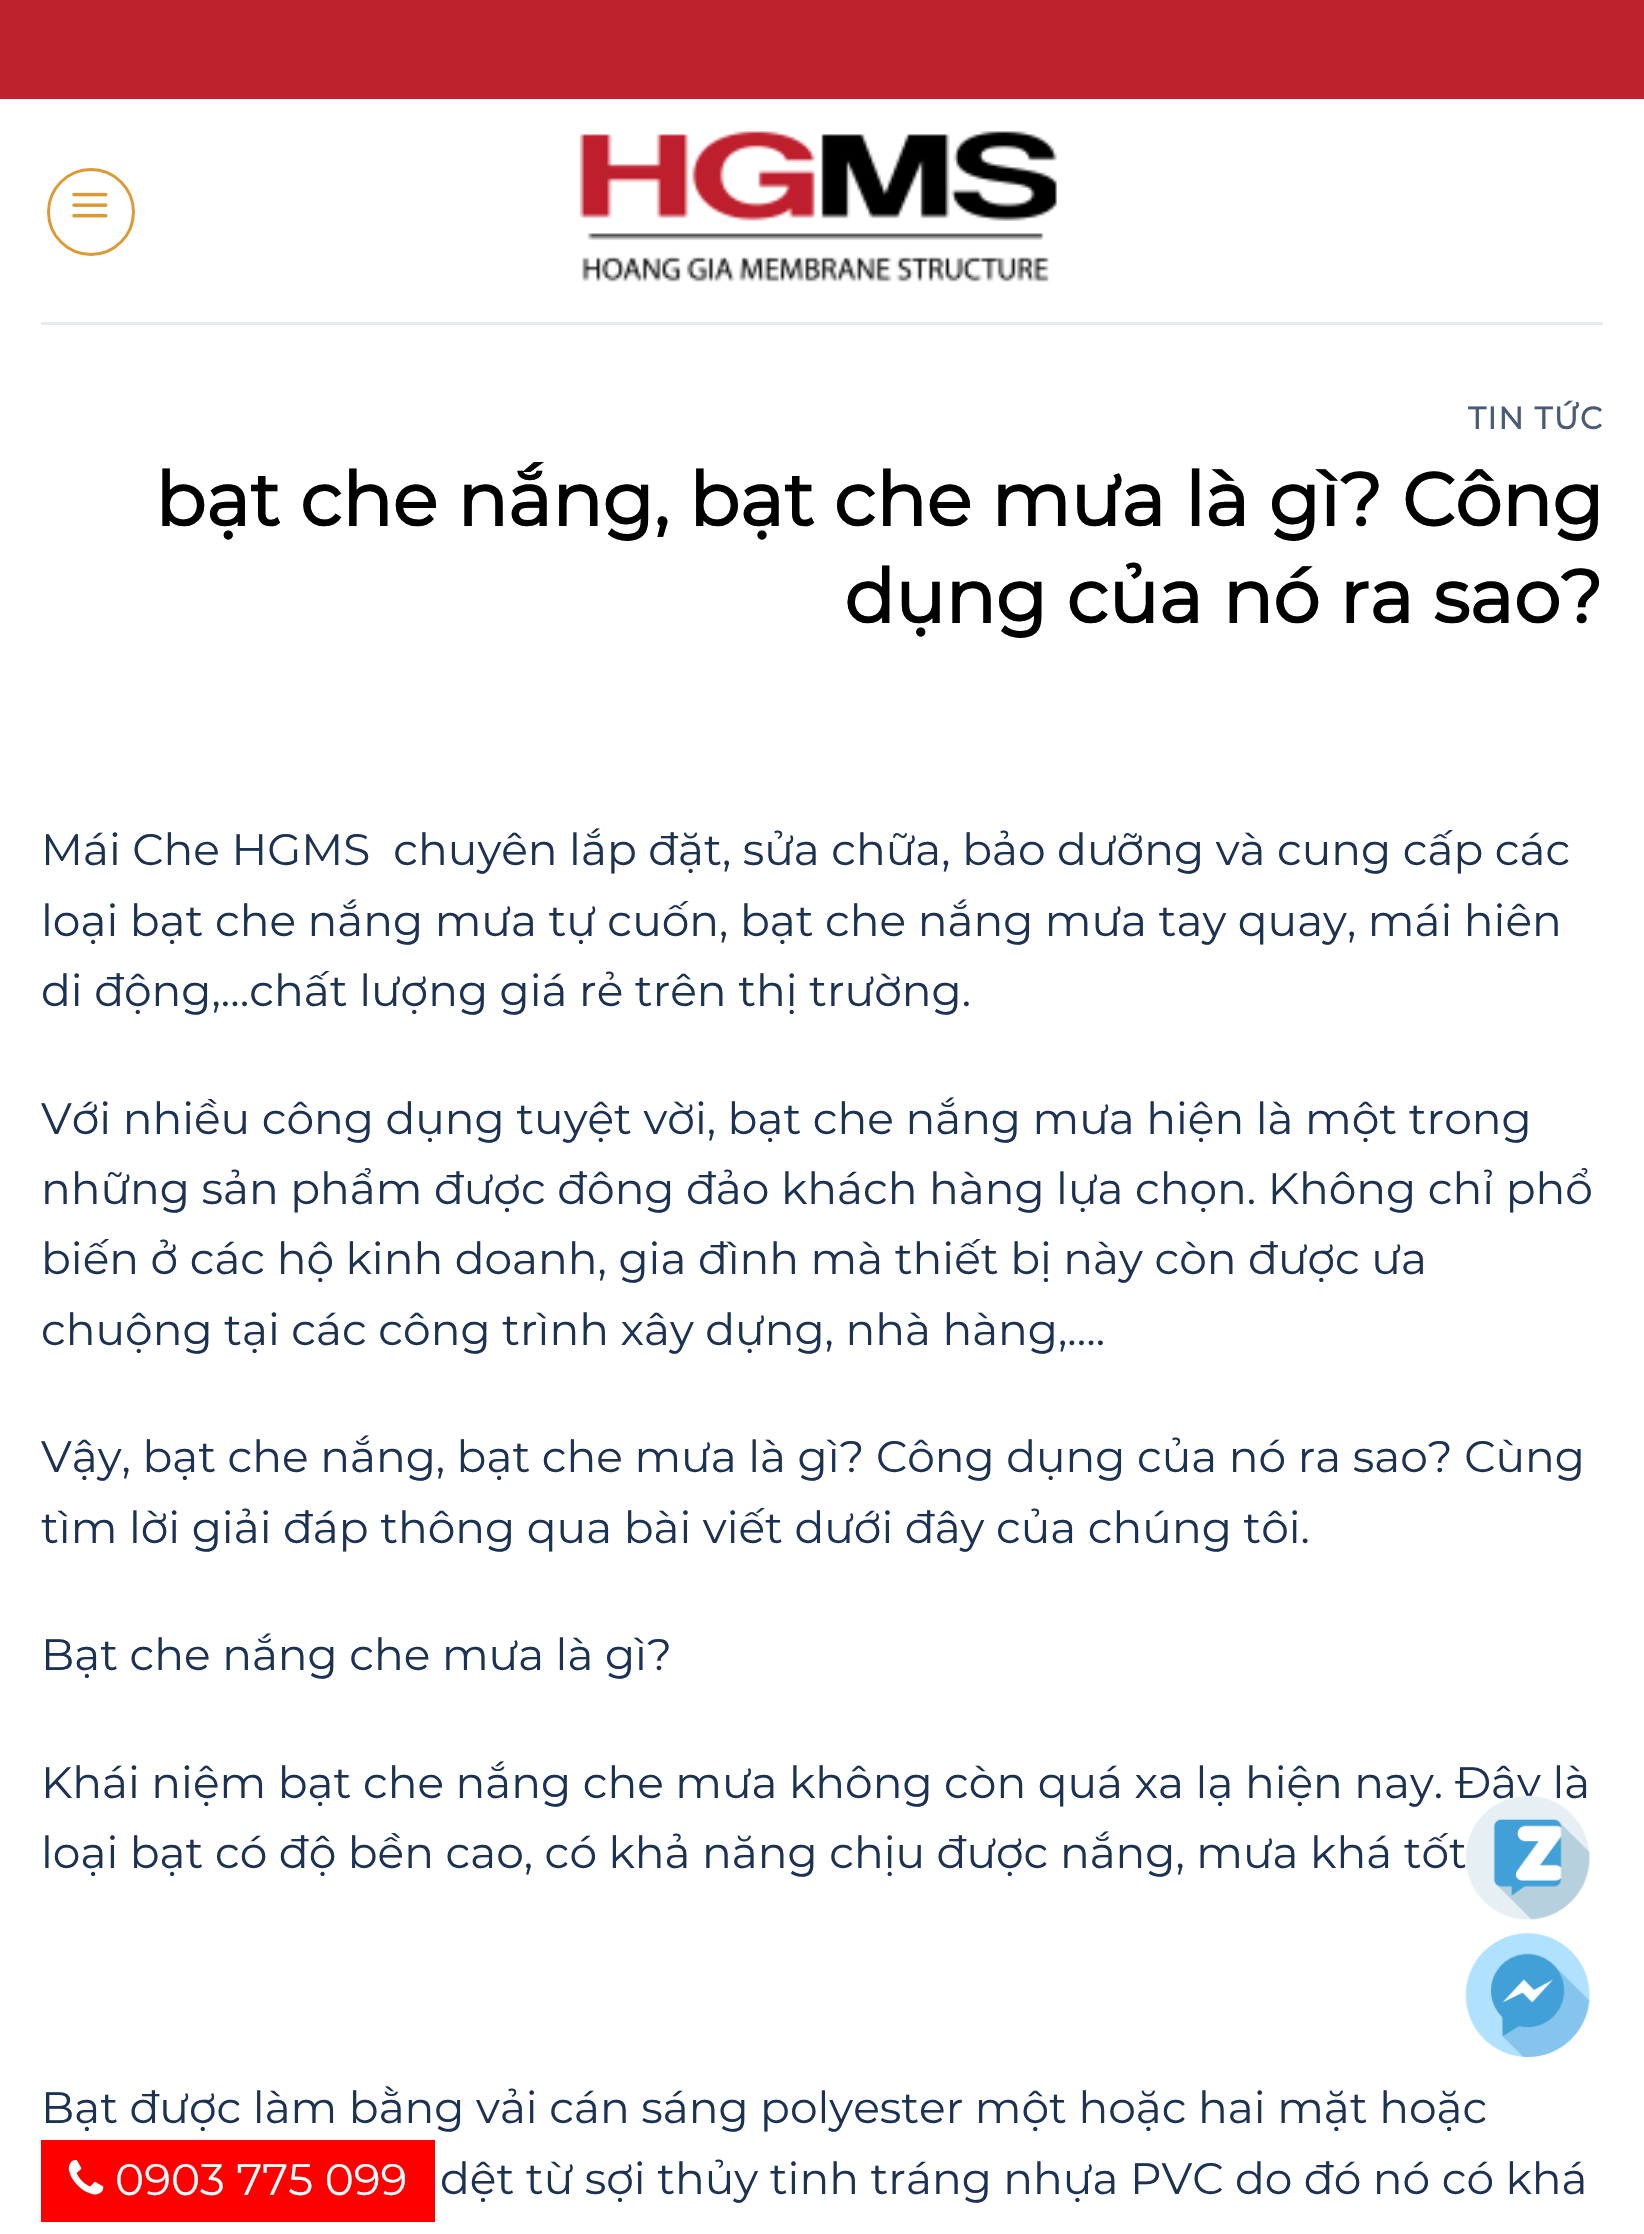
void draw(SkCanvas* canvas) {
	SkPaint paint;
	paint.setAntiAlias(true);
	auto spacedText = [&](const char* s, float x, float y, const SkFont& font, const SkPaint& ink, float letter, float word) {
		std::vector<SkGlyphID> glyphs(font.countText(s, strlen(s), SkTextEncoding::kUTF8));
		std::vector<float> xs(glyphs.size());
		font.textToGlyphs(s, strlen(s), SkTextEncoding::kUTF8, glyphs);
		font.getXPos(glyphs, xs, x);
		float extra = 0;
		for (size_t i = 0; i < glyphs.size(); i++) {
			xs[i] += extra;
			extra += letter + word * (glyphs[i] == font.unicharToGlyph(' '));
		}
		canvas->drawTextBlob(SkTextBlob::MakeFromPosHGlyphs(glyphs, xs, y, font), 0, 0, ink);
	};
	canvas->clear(0xffffffff);
	paint.setColor(0xffbe222e);
	canvas->drawRect(SkRect::MakeXYWH(0, 0, 1644, 99), paint);
	paint.setStroke(true);
	paint.setStrokeWidth(3);
	paint.setColor(0xffdd9933);
	canvas->drawCircle(91, 212, 42.5, paint);
	canvas->drawImageRect(SkImages::DeferredFromEncodedData(SkData::MakeFromFileName("img1.png")), SkRect::MakeXYWH(72, 192, 36, 26), SkSamplingOptions());
	canvas->drawImageRect(SkImages::DeferredFromEncodedData(SkData::MakeFromFileName("img2.png")), SkRect::MakeXYWH(580, 131, 477, 151), SkSamplingOptions());
	paint.setStroke(false);
	paint.setColor(0xffe8ebee);
	canvas->drawRect(SkRect::MakeXYWH(41, 322, 1562, 3), paint);
	SkFont f1(fontMgr->matchFamilyStyle("Montserrat", SkFontStyle::Bold()), 31);
	f1.setSubpixel(true);
	paint.setColor(0xff495b76);
	spacedText("TIN TỨC", 1468, 429, f1, paint, 1.5, 0);
	SkFont f2(fontMgr->matchFamilyStyle("Montserrat", SkFontStyle::Bold()), 74.75);
	f2.setSubpixel(true);
	paint.setColor(0xff000000);
	canvas->drawString("bạt che nắng, bạt che mưa là gì? Công", 155, 526, f2, paint);
	canvas->drawString("dụng của nó ra sao?", 844, 623, f2, paint);
	SkFont f3(fontMgr->matchFamilyStyle("Montserrat", SkFontStyle(100, SkFontStyle::kNormal_Width, SkFontStyle::kUpright_Slant)), 44);
	f3.setSubpixel(true);
	paint.setColor(0xff1c3254);
	canvas->drawString("Mái Che HGMS  chuyên lắp đặt, sửa chữa, bảo dưỡng và cung cấp các", 41, 865, f3, paint);
	canvas->drawString("loại bạt che nắng mưa tự cuốn, bạt che nắng mưa tay quay, mái hiên", 41, 936, f3, paint);
	canvas->drawString("di động,…chất lượng giá rẻ trên thị trường.", 41, 1006, f3, paint);
	canvas->drawString("Với nhiều công dụng tuyệt vời, bạt che nắng mưa hiện là một trong", 41, 1134, f3, paint);
	canvas->drawString("những sản phẩm được đông đảo khách hàng lựa chọn. Không chỉ phổ", 41, 1204, f3, paint);
	canvas->drawString("biến ở các hộ kinh doanh, gia đình mà thiết bị này còn được ưa", 41, 1274, f3, paint);
	canvas->drawString("chuộng tại các công trình xây dựng, nhà hàng,….", 41, 1345, f3, paint);
	canvas->drawString("Vậy, bạt che nắng, bạt che mưa là gì? Công dụng của nó ra sao? Cùng", 41, 1472, f3, paint);
	canvas->drawString("tìm lời giải đáp thông qua bài viết dưới đây của chúng tôi.", 41, 1543, f3, paint);
	canvas->drawString("Bạt che nắng che mưa là gì?", 41, 1670, f3, paint);
	canvas->drawString("Khái niệm bạt che nắng che mưa không còn quá xa lạ hiện nay. Đây là", 41, 1798, f3, paint);
	canvas->drawString("loại bạt có độ bền cao, có khả năng chịu được nắng, mưa khá tốt", 41, 1868, f3, paint);
	canvas->drawString("Bạt được làm bằng vải cán sáng polyester một hoặc hai mặt hoặc", 41, 2123, f3, paint);
	canvas->drawString("dệt từ sợi thủy tinh tráng nhựa PVC do đó nó có khá", 440, 2194, f3, paint);
	canvas->drawImageRect(SkImages::DeferredFromEncodedData(SkData::MakeFromFileName("img3.png")), SkRect::MakeXYWH(1465, 1795, 125, 125), SkSamplingOptions());
	canvas->drawImageRect(SkImages::DeferredFromEncodedData(SkData::MakeFromFileName("img4.png")), SkRect::MakeXYWH(1465, 1933, 125, 124), SkSamplingOptions());
	paint.setColor(0xffff0000);
	canvas->drawRect(SkRect::MakeXYWH(41, 2140, 394, 82), paint);
	canvas->drawImageRect(SkImages::DeferredFromEncodedData(SkData::MakeFromFileName("img5.png")), SkRect::MakeXYWH(68, 2160, 36, 35), SkSamplingOptions());
	paint.setColor(0xffffffff);
	canvas->drawString("0903 775 099", 115, 2195, f3, paint);
}
